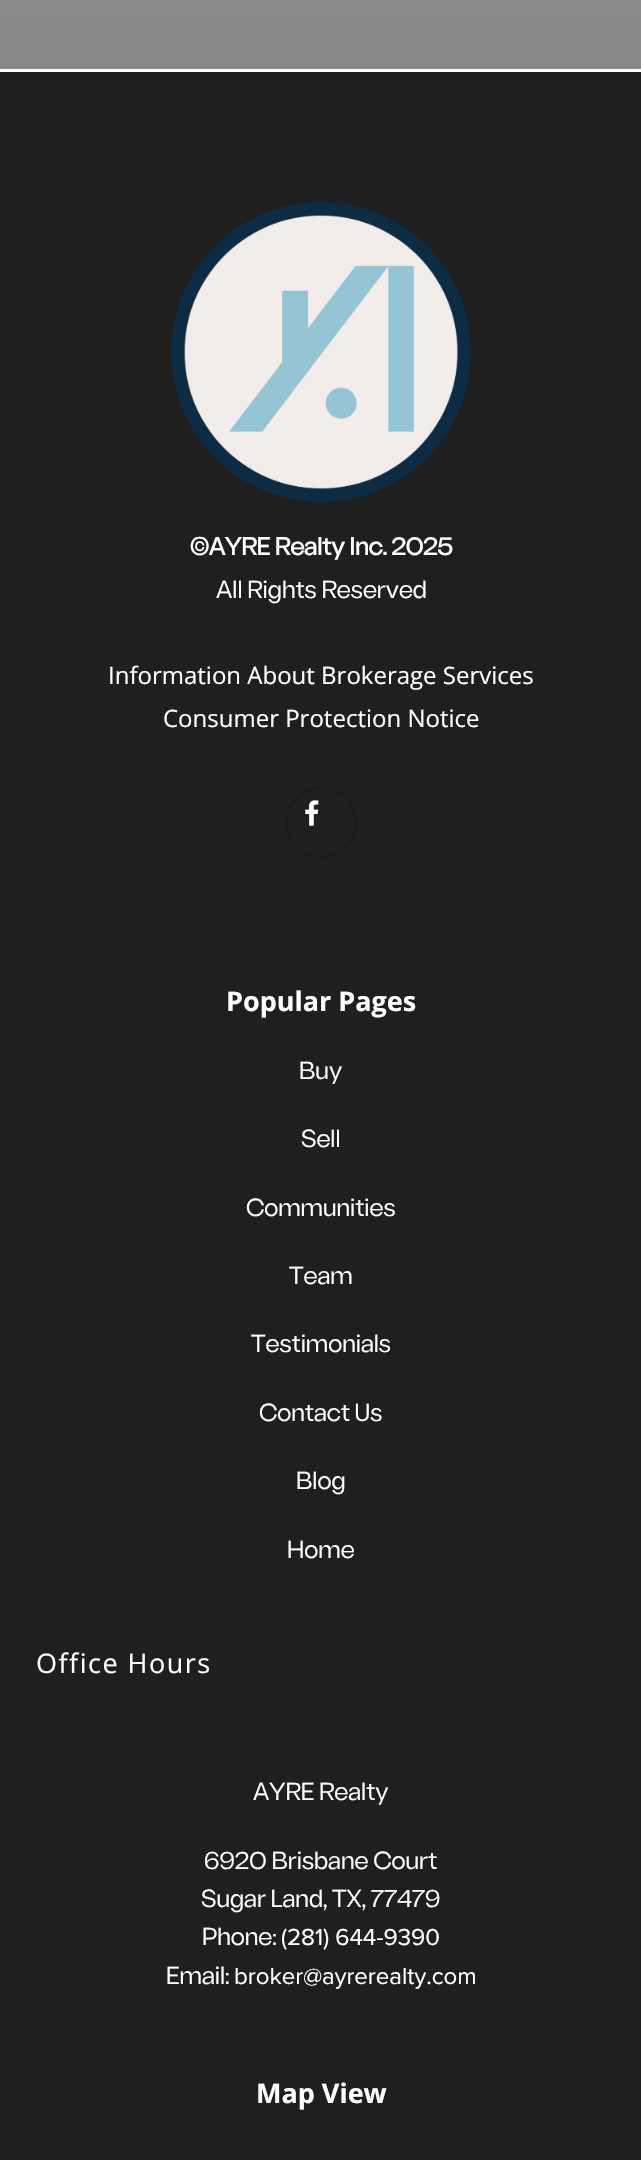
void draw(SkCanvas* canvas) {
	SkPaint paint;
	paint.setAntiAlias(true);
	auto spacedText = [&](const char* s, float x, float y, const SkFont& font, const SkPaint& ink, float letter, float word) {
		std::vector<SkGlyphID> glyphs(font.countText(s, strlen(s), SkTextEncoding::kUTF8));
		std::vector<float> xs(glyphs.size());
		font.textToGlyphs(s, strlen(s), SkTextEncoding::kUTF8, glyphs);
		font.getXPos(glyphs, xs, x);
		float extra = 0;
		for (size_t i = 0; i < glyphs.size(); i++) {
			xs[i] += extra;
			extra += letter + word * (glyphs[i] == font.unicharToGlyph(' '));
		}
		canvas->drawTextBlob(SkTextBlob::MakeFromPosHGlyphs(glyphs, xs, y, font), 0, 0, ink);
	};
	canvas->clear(0xffffffff);
	{
		const SkColor colors[] = {0xffaaaaaa, 0xff888888};
		const float stops[] = {0, 1};
		const SkPoint ends[] = {{321, -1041}, {321, 69}};
		paint.setShader(SkGradientShader::MakeLinear(ends, colors, stops, 2, SkTileMode::kClamp));
		paint.setAlpha(255);
	}
	canvas->drawRect(SkRect::MakeXYWH(0, 0, 641, 69), paint);
	paint.setShader(nullptr);
	paint.setColor(0xff1f1f1f);
	canvas->drawRect(SkRect::MakeXYWH(0, 72, 641, 2088), paint);
	canvas->drawImageRect(SkImages::DeferredFromEncodedData(SkData::MakeFromFileName("img1.png")), SkRect::MakeXYWH(171, 202, 300, 300), SkSamplingOptions());
	SkFont f1(fontMgr->matchFamilyStyle("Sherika", SkFontStyle::Bold()), 24);
	f1.setSubpixel(true);
	paint.setColor(0xffffffff);
	canvas->drawString("©AYRE Realty Inc. 2025", 190, 555, f1, paint);
	SkFont f2(fontMgr->matchFamilyStyle("Sherika", SkFontStyle::Normal()), 24);
	f2.setSubpixel(true);
	canvas->drawString("All Rights Reserved", 216, 598, f2, paint);
	SkFont f3(fontMgr->matchFamilyStyle("Open Sans", SkFontStyle::Normal()), 24);
	f3.setSubpixel(true);
	canvas->drawString("Information About Brokerage Services", 108, 684, f3, paint);
	canvas->drawString("Consumer Protection Notice", 163, 727, f3, paint);
	paint.setStroke(true);
	paint.setStrokeWidth(3);
	paint.setColor(0xff1c1c1c);
	canvas->drawCircle(321, 822, 34.5, paint);
	canvas->drawImageRect(SkImages::DeferredFromEncodedData(SkData::MakeFromFileName("img2.png")), SkRect::MakeXYWH(305, 800, 14, 26), SkSamplingOptions());
	SkFont f4(fontMgr->matchFamilyStyle("Open Sans", SkFontStyle::Bold()), 27);
	f4.setSubpixel(true);
	paint.setStroke(false);
	paint.setColor(0xffffffff);
	canvas->drawString("Popular Pages", 226, 1011, f4, paint);
	canvas->drawString("Buy", 299, 1079, f2, paint);
	canvas->drawString("Sell", 301, 1147, f2, paint);
	canvas->drawString("Communities", 246, 1216, f2, paint);
	canvas->drawString("Team", 289, 1284, f2, paint);
	canvas->drawString("Testimonials", 251, 1352, f2, paint);
	canvas->drawString("Contact Us", 259, 1421, f2, paint);
	canvas->drawString("Blog", 296, 1489, f2, paint);
	canvas->drawString("Home", 287, 1558, f2, paint);
	SkFont f5(fontMgr->matchFamilyStyle("Open Sans", SkFontStyle::Normal()), 27);
	f5.setSubpixel(true);
	spacedText("Office Hours", 36, 1673, f5, paint, 1.5, 0);
	canvas->drawString("AYRE Realty", 253, 1800, f2, paint);
	canvas->drawString("6920 Brisbane Court", 204, 1869, f2, paint);
	canvas->drawString("Sugar Land, TX, 77479", 201, 1907, f2, paint);
	canvas->drawString("Phone:", 202, 1945, f2, paint);
	SkFont f6(fontMgr->matchFamilyStyle("Proxima Nova", SkFontStyle::Normal()), 24);
	f6.setSubpixel(true);
	canvas->drawString("(281) 644-9390", 281, 1945, f6, paint);
	canvas->drawString("Email:", 166, 1984, f2, paint);
	canvas->drawString("broker@ayrerealty.com", 234, 1984, f6, paint);
	canvas->drawString("Map View", 256, 2103, f4, paint);
}
